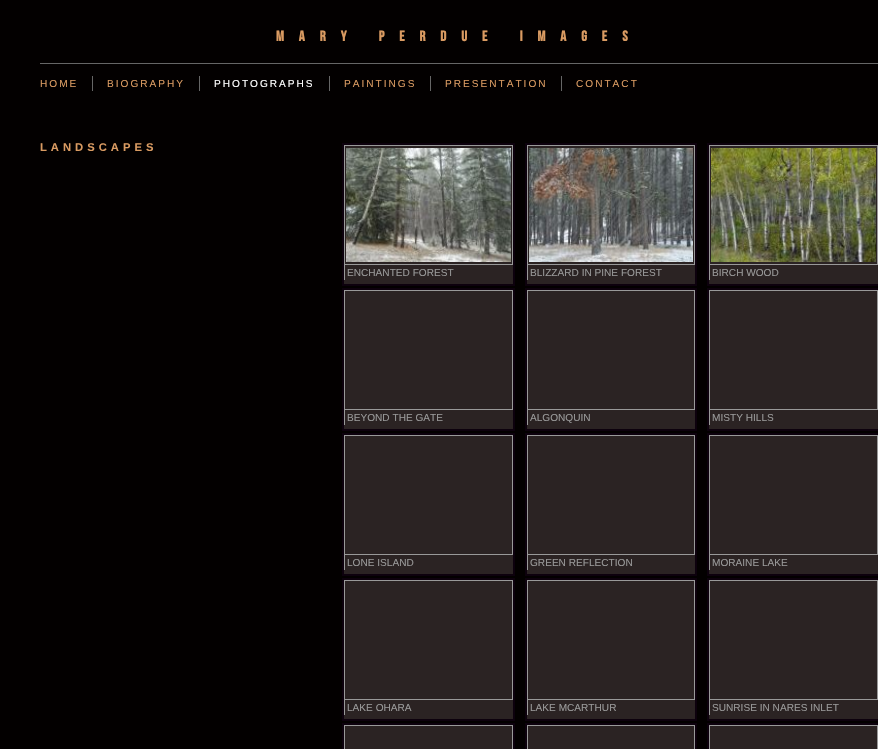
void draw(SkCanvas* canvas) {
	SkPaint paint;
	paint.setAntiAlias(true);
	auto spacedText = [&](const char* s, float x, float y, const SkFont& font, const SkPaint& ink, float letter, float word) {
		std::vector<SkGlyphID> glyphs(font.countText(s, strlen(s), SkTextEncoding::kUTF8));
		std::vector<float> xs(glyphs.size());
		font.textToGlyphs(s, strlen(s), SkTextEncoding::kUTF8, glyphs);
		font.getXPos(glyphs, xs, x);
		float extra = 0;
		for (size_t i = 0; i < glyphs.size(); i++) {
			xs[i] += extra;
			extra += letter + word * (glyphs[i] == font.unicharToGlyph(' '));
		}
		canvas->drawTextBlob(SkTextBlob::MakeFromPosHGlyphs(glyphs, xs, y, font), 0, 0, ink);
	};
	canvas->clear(0xff030000);
	paint.setColor(0xff666666);
	canvas->drawRect(SkRect::MakeXYWH(40, 63, 838, 1), paint);
	SkFont f1(fontMgr->matchFamilyStyle("Bebas Neue", SkFontStyle::Bold()), 14.55);
	f1.setSubpixel(true);
	paint.setColor(0xffda9b62);
	spacedText("MARY PERDUE IMAGES", 276, 41, f1, paint, 15, 0);
	SkFont f2(fontMgr->matchFamilyStyle("Liberation Sans", SkFontStyle::Normal()), 10.1);
	f2.setSubpixel(true);
	spacedText("HOME", 40, 87, f2, paint, 2, 0);
	paint.setColor(0xff666666);
	canvas->drawRect(SkRect::MakeXYWH(92, 76, 1, 15), paint);
	paint.setColor(0xffda9b62);
	spacedText("BIOGRAPHY", 107, 87, f2, paint, 2, 0);
	paint.setColor(0xff666666);
	canvas->drawRect(SkRect::MakeXYWH(199, 76, 1, 15), paint);
	paint.setColor(0xffffffff);
	spacedText("PHOTOGRAPHS", 214, 87, f2, paint, 2, 0);
	paint.setColor(0xff666666);
	canvas->drawRect(SkRect::MakeXYWH(329, 76, 1, 15), paint);
	paint.setColor(0xffda9b62);
	spacedText("PAINTINGS", 344, 87, f2, paint, 2, 0);
	paint.setColor(0xff666666);
	canvas->drawRect(SkRect::MakeXYWH(430, 76, 1, 15), paint);
	paint.setColor(0xffda9b62);
	spacedText("PRESENTATION", 445, 87, f2, paint, 2, 0);
	paint.setColor(0xff666666);
	canvas->drawRect(SkRect::MakeXYWH(561, 76, 1, 15), paint);
	paint.setColor(0xffda9b62);
	spacedText("CONTACT", 576, 87, f2, paint, 2, 0);
	SkFont f3(fontMgr->matchFamilyStyle("Liberation Sans", SkFontStyle::Bold()), 11.25);
	f3.setSubpixel(true);
	spacedText("LANDSCAPES", 40, 151, f3, paint, 4, 0);
	paint.setColor(0xff2b2323);
	canvas->drawRect(SkRect::MakeXYWH(344, 146, 169, 138), paint);
	paint.setStroke(true);
	paint.setStrokeWidth(2);
	paint.setColor(0xff0d010d);
	canvas->drawRect(SkRect::MakeXYWH(343, 144, 171, 141), paint);
	paint.setStrokeWidth(1);
	paint.setColor(0xff999999);
	canvas->drawRect(SkRect::MakeXYWH(344.5, 145.5, 168, 119), paint);
	canvas->drawImageRect(SkImages::DeferredFromEncodedData(SkData::MakeFromFileName("img1.png")), SkRect::MakeXYWH(346, 148, 165, 114), SkSamplingOptions());
	paint.setStroke(false);
	canvas->drawRect(SkRect::MakeXYWH(344, 265, 1, 15), paint);
	canvas->drawString("ENCHANTED FOREST", 347, 276, f2, paint);
	paint.setColor(0xff2b2323);
	canvas->drawRect(SkRect::MakeXYWH(527, 146, 168, 138), paint);
	paint.setStroke(true);
	paint.setStrokeWidth(2);
	paint.setColor(0xff0d010d);
	canvas->drawRect(SkRect::MakeXYWH(526, 144, 170, 141), paint);
	paint.setStrokeWidth(1);
	paint.setColor(0xff999999);
	canvas->drawRect(SkRect::MakeXYWH(527.5, 145.5, 167, 119), paint);
	canvas->drawImageRect(SkImages::DeferredFromEncodedData(SkData::MakeFromFileName("img2.png")), SkRect::MakeXYWH(529, 148, 164, 114), SkSamplingOptions());
	paint.setStroke(false);
	canvas->drawRect(SkRect::MakeXYWH(527, 265, 1, 15), paint);
	canvas->drawString("BLIZZARD IN PINE FOREST", 530, 276, f2, paint);
	paint.setColor(0xff2b2323);
	canvas->drawRect(SkRect::MakeXYWH(709, 146, 169, 138), paint);
	paint.setStroke(true);
	paint.setStrokeWidth(2);
	paint.setColor(0xff0d010d);
	canvas->drawRect(SkRect::MakeXYWH(708, 144, 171, 141), paint);
	paint.setStrokeWidth(1);
	paint.setColor(0xff999999);
	canvas->drawRect(SkRect::MakeXYWH(709.5, 145.5, 168, 119), paint);
	canvas->drawImageRect(SkImages::DeferredFromEncodedData(SkData::MakeFromFileName("img3.png")), SkRect::MakeXYWH(711, 148, 165, 114), SkSamplingOptions());
	paint.setStroke(false);
	canvas->drawRect(SkRect::MakeXYWH(709, 265, 1, 15), paint);
	canvas->drawString("BIRCH WOOD", 712, 276, f2, paint);
	paint.setColor(0xff2b2323);
	canvas->drawRect(SkRect::MakeXYWH(344, 291, 169, 138), paint);
	paint.setStroke(true);
	paint.setStrokeWidth(2);
	paint.setColor(0xff0d010d);
	canvas->drawRect(SkRect::MakeXYWH(343, 289, 171, 141), paint);
	paint.setStrokeWidth(1);
	paint.setColor(0xff999999);
	canvas->drawRect(SkRect::MakeXYWH(344.5, 290.5, 168, 119), paint);
	paint.setStroke(false);
	canvas->drawRect(SkRect::MakeXYWH(344, 410, 1, 15), paint);
	canvas->drawString("BEYOND THE GATE", 347, 421, f2, paint);
	paint.setColor(0xff2b2323);
	canvas->drawRect(SkRect::MakeXYWH(527, 291, 168, 138), paint);
	paint.setStroke(true);
	paint.setStrokeWidth(2);
	paint.setColor(0xff0d010d);
	canvas->drawRect(SkRect::MakeXYWH(526, 289, 170, 141), paint);
	paint.setStrokeWidth(1);
	paint.setColor(0xff999999);
	canvas->drawRect(SkRect::MakeXYWH(527.5, 290.5, 167, 119), paint);
	paint.setStroke(false);
	canvas->drawRect(SkRect::MakeXYWH(527, 410, 1, 15), paint);
	canvas->drawString("ALGONQUIN", 530, 421, f2, paint);
	paint.setColor(0xff2b2323);
	canvas->drawRect(SkRect::MakeXYWH(709, 291, 169, 138), paint);
	paint.setStroke(true);
	paint.setStrokeWidth(2);
	paint.setColor(0xff0d010d);
	canvas->drawRect(SkRect::MakeXYWH(708, 289, 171, 141), paint);
	paint.setStrokeWidth(1);
	paint.setColor(0xff999999);
	canvas->drawRect(SkRect::MakeXYWH(709.5, 290.5, 168, 119), paint);
	paint.setStroke(false);
	canvas->drawRect(SkRect::MakeXYWH(709, 410, 1, 15), paint);
	canvas->drawString("MISTY HILLS", 712, 421, f2, paint);
	paint.setColor(0xff2b2323);
	canvas->drawRect(SkRect::MakeXYWH(344, 436, 169, 138), paint);
	paint.setStroke(true);
	paint.setStrokeWidth(2);
	paint.setColor(0xff0d010d);
	canvas->drawRect(SkRect::MakeXYWH(343, 434, 171, 141), paint);
	paint.setStrokeWidth(1);
	paint.setColor(0xff999999);
	canvas->drawRect(SkRect::MakeXYWH(344.5, 435.5, 168, 119), paint);
	paint.setStroke(false);
	canvas->drawRect(SkRect::MakeXYWH(344, 555, 1, 15), paint);
	canvas->drawString("LONE ISLAND", 347, 566, f2, paint);
	paint.setColor(0xff2b2323);
	canvas->drawRect(SkRect::MakeXYWH(527, 436, 168, 138), paint);
	paint.setStroke(true);
	paint.setStrokeWidth(2);
	paint.setColor(0xff0d010d);
	canvas->drawRect(SkRect::MakeXYWH(526, 434, 170, 141), paint);
	paint.setStrokeWidth(1);
	paint.setColor(0xff999999);
	canvas->drawRect(SkRect::MakeXYWH(527.5, 435.5, 167, 119), paint);
	paint.setStroke(false);
	canvas->drawRect(SkRect::MakeXYWH(527, 555, 1, 15), paint);
	canvas->drawString("GREEN REFLECTION", 530, 566, f2, paint);
	paint.setColor(0xff2b2323);
	canvas->drawRect(SkRect::MakeXYWH(709, 436, 169, 138), paint);
	paint.setStroke(true);
	paint.setStrokeWidth(2);
	paint.setColor(0xff0d010d);
	canvas->drawRect(SkRect::MakeXYWH(708, 434, 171, 141), paint);
	paint.setStrokeWidth(1);
	paint.setColor(0xff999999);
	canvas->drawRect(SkRect::MakeXYWH(709.5, 435.5, 168, 119), paint);
	paint.setStroke(false);
	canvas->drawRect(SkRect::MakeXYWH(709, 555, 1, 15), paint);
	canvas->drawString("MORAINE LAKE", 712, 566, f2, paint);
	paint.setColor(0xff2b2323);
	canvas->drawRect(SkRect::MakeXYWH(344, 581, 169, 138), paint);
	paint.setStroke(true);
	paint.setStrokeWidth(2);
	paint.setColor(0xff0d010d);
	canvas->drawRect(SkRect::MakeXYWH(343, 579, 171, 141), paint);
	paint.setStrokeWidth(1);
	paint.setColor(0xff999999);
	canvas->drawRect(SkRect::MakeXYWH(344.5, 580.5, 168, 119), paint);
	paint.setStroke(false);
	canvas->drawRect(SkRect::MakeXYWH(344, 700, 1, 15), paint);
	canvas->drawString("LAKE OHARA", 347, 711, f2, paint);
	paint.setColor(0xff2b2323);
	canvas->drawRect(SkRect::MakeXYWH(527, 581, 168, 138), paint);
	paint.setStroke(true);
	paint.setStrokeWidth(2);
	paint.setColor(0xff0d010d);
	canvas->drawRect(SkRect::MakeXYWH(526, 579, 170, 141), paint);
	paint.setStrokeWidth(1);
	paint.setColor(0xff999999);
	canvas->drawRect(SkRect::MakeXYWH(527.5, 580.5, 167, 119), paint);
	paint.setStroke(false);
	canvas->drawRect(SkRect::MakeXYWH(527, 700, 1, 15), paint);
	canvas->drawString("LAKE MCARTHUR", 530, 711, f2, paint);
	paint.setColor(0xff2b2323);
	canvas->drawRect(SkRect::MakeXYWH(709, 581, 169, 138), paint);
	paint.setStroke(true);
	paint.setStrokeWidth(2);
	paint.setColor(0xff0d010d);
	canvas->drawRect(SkRect::MakeXYWH(708, 579, 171, 141), paint);
	paint.setStrokeWidth(1);
	paint.setColor(0xff999999);
	canvas->drawRect(SkRect::MakeXYWH(709.5, 580.5, 168, 119), paint);
	paint.setStroke(false);
	canvas->drawRect(SkRect::MakeXYWH(709, 700, 1, 15), paint);
	canvas->drawString("SUNRISE IN NARES INLET", 712, 711, f2, paint);
	paint.setColor(0xff2b2323);
	canvas->drawRect(SkRect::MakeXYWH(345, 726, 167, 23), paint);
	paint.setStroke(true);
	paint.setStrokeWidth(2);
	paint.setColor(0xff0d010d);
	canvas->drawRect(SkRect::MakeXYWH(343, 724, 171, 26), paint);
	paint.setStrokeWidth(1);
	paint.setColor(0xff999999);
	canvas->drawRect(SkRect::MakeXYWH(344.5, 725.5, 168, 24), paint);
	paint.setStroke(false);
	paint.setColor(0xff2b2323);
	canvas->drawRect(SkRect::MakeXYWH(528, 726, 166, 23), paint);
	paint.setStroke(true);
	paint.setStrokeWidth(2);
	paint.setColor(0xff0d010d);
	canvas->drawRect(SkRect::MakeXYWH(526, 724, 170, 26), paint);
	paint.setStrokeWidth(1);
	paint.setColor(0xff999999);
	canvas->drawRect(SkRect::MakeXYWH(527.5, 725.5, 167, 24), paint);
	paint.setStroke(false);
	paint.setColor(0xff2b2323);
	canvas->drawRect(SkRect::MakeXYWH(710, 726, 167, 23), paint);
	paint.setStroke(true);
	paint.setStrokeWidth(2);
	paint.setColor(0xff0d010d);
	canvas->drawRect(SkRect::MakeXYWH(708, 724, 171, 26), paint);
	paint.setStrokeWidth(1);
	paint.setColor(0xff999999);
	canvas->drawRect(SkRect::MakeXYWH(709.5, 725.5, 168, 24), paint);
}
